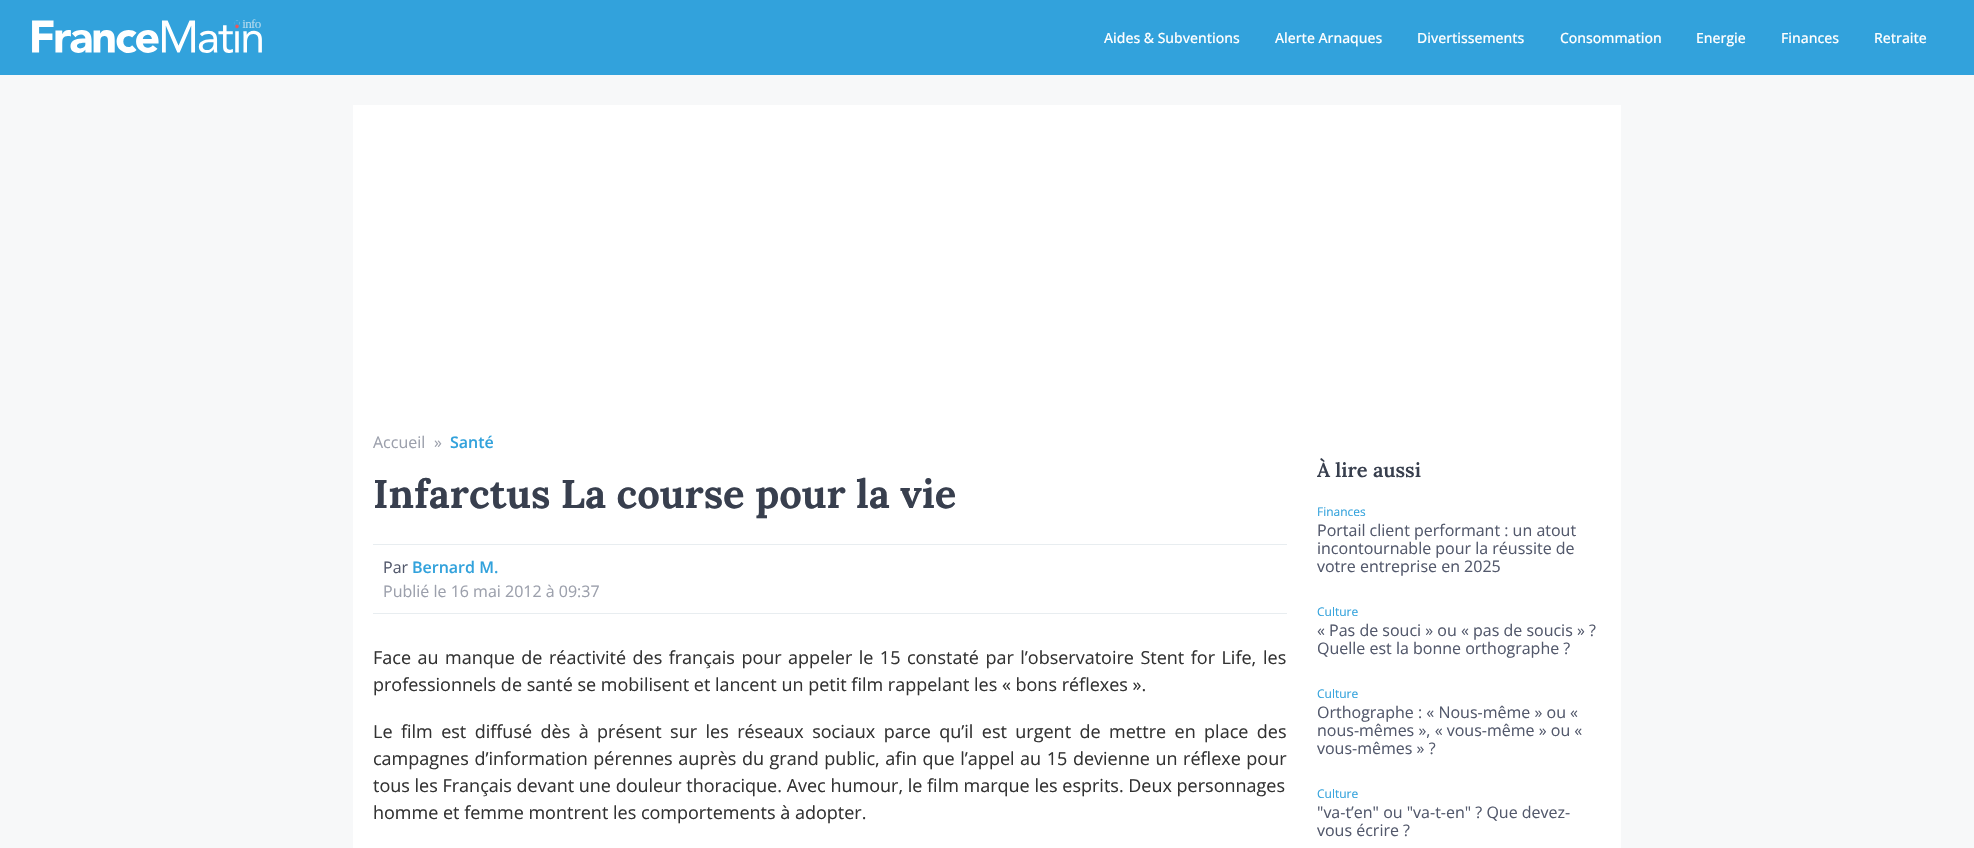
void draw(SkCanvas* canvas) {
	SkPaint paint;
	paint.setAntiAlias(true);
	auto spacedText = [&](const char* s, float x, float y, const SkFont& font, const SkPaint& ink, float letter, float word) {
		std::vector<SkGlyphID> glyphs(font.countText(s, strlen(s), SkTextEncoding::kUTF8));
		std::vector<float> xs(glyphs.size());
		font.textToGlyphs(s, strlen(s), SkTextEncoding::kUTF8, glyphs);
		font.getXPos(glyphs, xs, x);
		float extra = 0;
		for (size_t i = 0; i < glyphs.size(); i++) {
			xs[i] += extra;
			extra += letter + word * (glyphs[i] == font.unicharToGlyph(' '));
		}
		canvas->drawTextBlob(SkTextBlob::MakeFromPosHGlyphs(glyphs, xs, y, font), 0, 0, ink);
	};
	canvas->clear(0xfff7f8f9);
	paint.setColor(0xff32a2dc);
	canvas->drawRect(SkRect::MakeXYWH(0, 0, 1974, 75), paint);
	canvas->drawImageRect(SkImages::DeferredFromEncodedData(SkData::MakeFromFileName("img1.png")), SkRect::MakeXYWH(32, 19, 230, 34), SkSamplingOptions());
	SkFont f1(fontMgr->matchFamilyStyle("Open Sans", SkFontStyle(500, SkFontStyle::kNormal_Width, SkFontStyle::kUpright_Slant)), 14);
	f1.setSubpixel(true);
	paint.setColor(0xffffffff);
	canvas->drawString("Aides & Subventions", 1104, 43, f1, paint);
	canvas->drawString("Alerte Arnaques", 1275, 43, f1, paint);
	canvas->drawString("Divertissements", 1417, 43, f1, paint);
	canvas->drawString("Consommation", 1560, 43, f1, paint);
	canvas->drawString("Energie", 1696, 43, f1, paint);
	canvas->drawString("Finances", 1781, 43, f1, paint);
	canvas->drawString("Retraite", 1874, 43, f1, paint);
	canvas->drawRect(SkRect::MakeXYWH(353, 105, 1268, 743), paint);
	SkFont f2(fontMgr->matchFamilyStyle("Open Sans", SkFontStyle::Normal()), 16);
	f2.setSubpixel(true);
	paint.setColor(0xff9ca0ac);
	canvas->drawString("Accueil", 373, 448, f2, paint);
	canvas->drawString("»", 434, 448, f2, paint);
	SkFont f3(fontMgr->matchFamilyStyle("Open Sans", SkFontStyle(600, SkFontStyle::kNormal_Width, SkFontStyle::kUpright_Slant)), 16);
	f3.setSubpixel(true);
	paint.setColor(0xff32a2dc);
	canvas->drawString("Santé", 450, 448, f3, paint);
	SkFont f4(fontMgr->matchFamilyStyle("Lora", SkFontStyle::Bold()), 40);
	f4.setSubpixel(true);
	paint.setColor(0xff383f4e);
	canvas->drawString("Infarctus La course pour la vie", 373, 508, f4, paint);
	paint.setColor(0xffe8edf0);
	canvas->drawRect(SkRect::MakeXYWH(373, 544, 914, 1), paint);
	canvas->drawRect(SkRect::MakeXYWH(373, 613, 914, 1), paint);
	paint.setColor(0xff53596c);
	canvas->drawString("Par", 383, 573, f2, paint);
	paint.setColor(0xff32a2dc);
	canvas->drawString("Bernard M.", 412, 573, f3, paint);
	paint.setColor(0xff9ca0ac);
	canvas->drawString("Publié le 16 mai 2012 à 09:37", 383, 597, f2, paint);
	SkFont f5(fontMgr->matchFamilyStyle("Open Sans", SkFontStyle::Normal()), 18);
	f5.setSubpixel(true);
	paint.setColor(0xff333333);
	spacedText("Face au manque de réactivité des français pour appeler le 15 constaté par l’observatoire Stent for Life,", 373, 664, f5, paint, 0, 1.8);
	canvas->drawString("les", 1263, 664, f5, paint);
	canvas->drawString("professionnels de santé se mobilisent et lancent un petit film rappelant les « bons réflexes ».", 373, 691, f5, paint);
	spacedText("Le film est diffusé dès à présent sur les réseaux sociaux parce qu’il est urgent de mettre en place des", 373, 738, f5, paint, 0, 3.75);
	spacedText("campagnes d’information pérennes auprès du grand public, afin que l’appel au 15 devienne un réflexe pour", 373, 765, f5, paint, 0, 0.9);
	canvas->drawString("tous les Français devant une douleur thoracique. Avec humour, le film marque les esprits. Deux personnages", 373, 792, f5, paint);
	canvas->drawString("homme et femme montrent les comportements à adopter.", 373, 819, f5, paint);
	SkFont f6(fontMgr->matchFamilyStyle("Lora", SkFontStyle(600, SkFontStyle::kNormal_Width, SkFontStyle::kUpright_Slant)), 20);
	f6.setSubpixel(true);
	paint.setColor(0xff383f4e);
	canvas->drawString("À lire aussi", 1317, 477, f6, paint);
	SkFont f7(fontMgr->matchFamilyStyle("Open Sans", SkFontStyle::Normal()), 12);
	f7.setSubpixel(true);
	paint.setColor(0xff32a2dc);
	canvas->drawString("Finances", 1317, 516, f7, paint);
	paint.setColor(0xff53596c);
	canvas->drawString("Portail client performant : un atout", 1317, 536, f2, paint);
	canvas->drawString("incontournable pour la réussite de", 1317, 554, f2, paint);
	canvas->drawString("votre entreprise en 2025", 1317, 572, f2, paint);
	paint.setColor(0xff32a2dc);
	canvas->drawString("Culture", 1317, 616, f7, paint);
	paint.setColor(0xff53596c);
	canvas->drawString("« Pas de souci » ou « pas de soucis » ?", 1317, 636, f2, paint);
	canvas->drawString("Quelle est la bonne orthographe ?", 1317, 654, f2, paint);
	paint.setColor(0xff32a2dc);
	canvas->drawString("Culture", 1317, 698, f7, paint);
	paint.setColor(0xff53596c);
	canvas->drawString("Orthographe : « Nous-même » ou «", 1317, 718, f2, paint);
	canvas->drawString("nous-mêmes », « vous-même » ou «", 1317, 736, f2, paint);
	canvas->drawString("vous-mêmes » ?", 1317, 754, f2, paint);
	paint.setColor(0xff32a2dc);
	canvas->drawString("Culture", 1317, 798, f7, paint);
	paint.setColor(0xff53596c);
	canvas->drawString("\"va-t’en\" ou \"va-t-en\" ? Que devez-", 1317, 818, f2, paint);
	canvas->drawString("vous écrire ?", 1317, 836, f2, paint);
}
